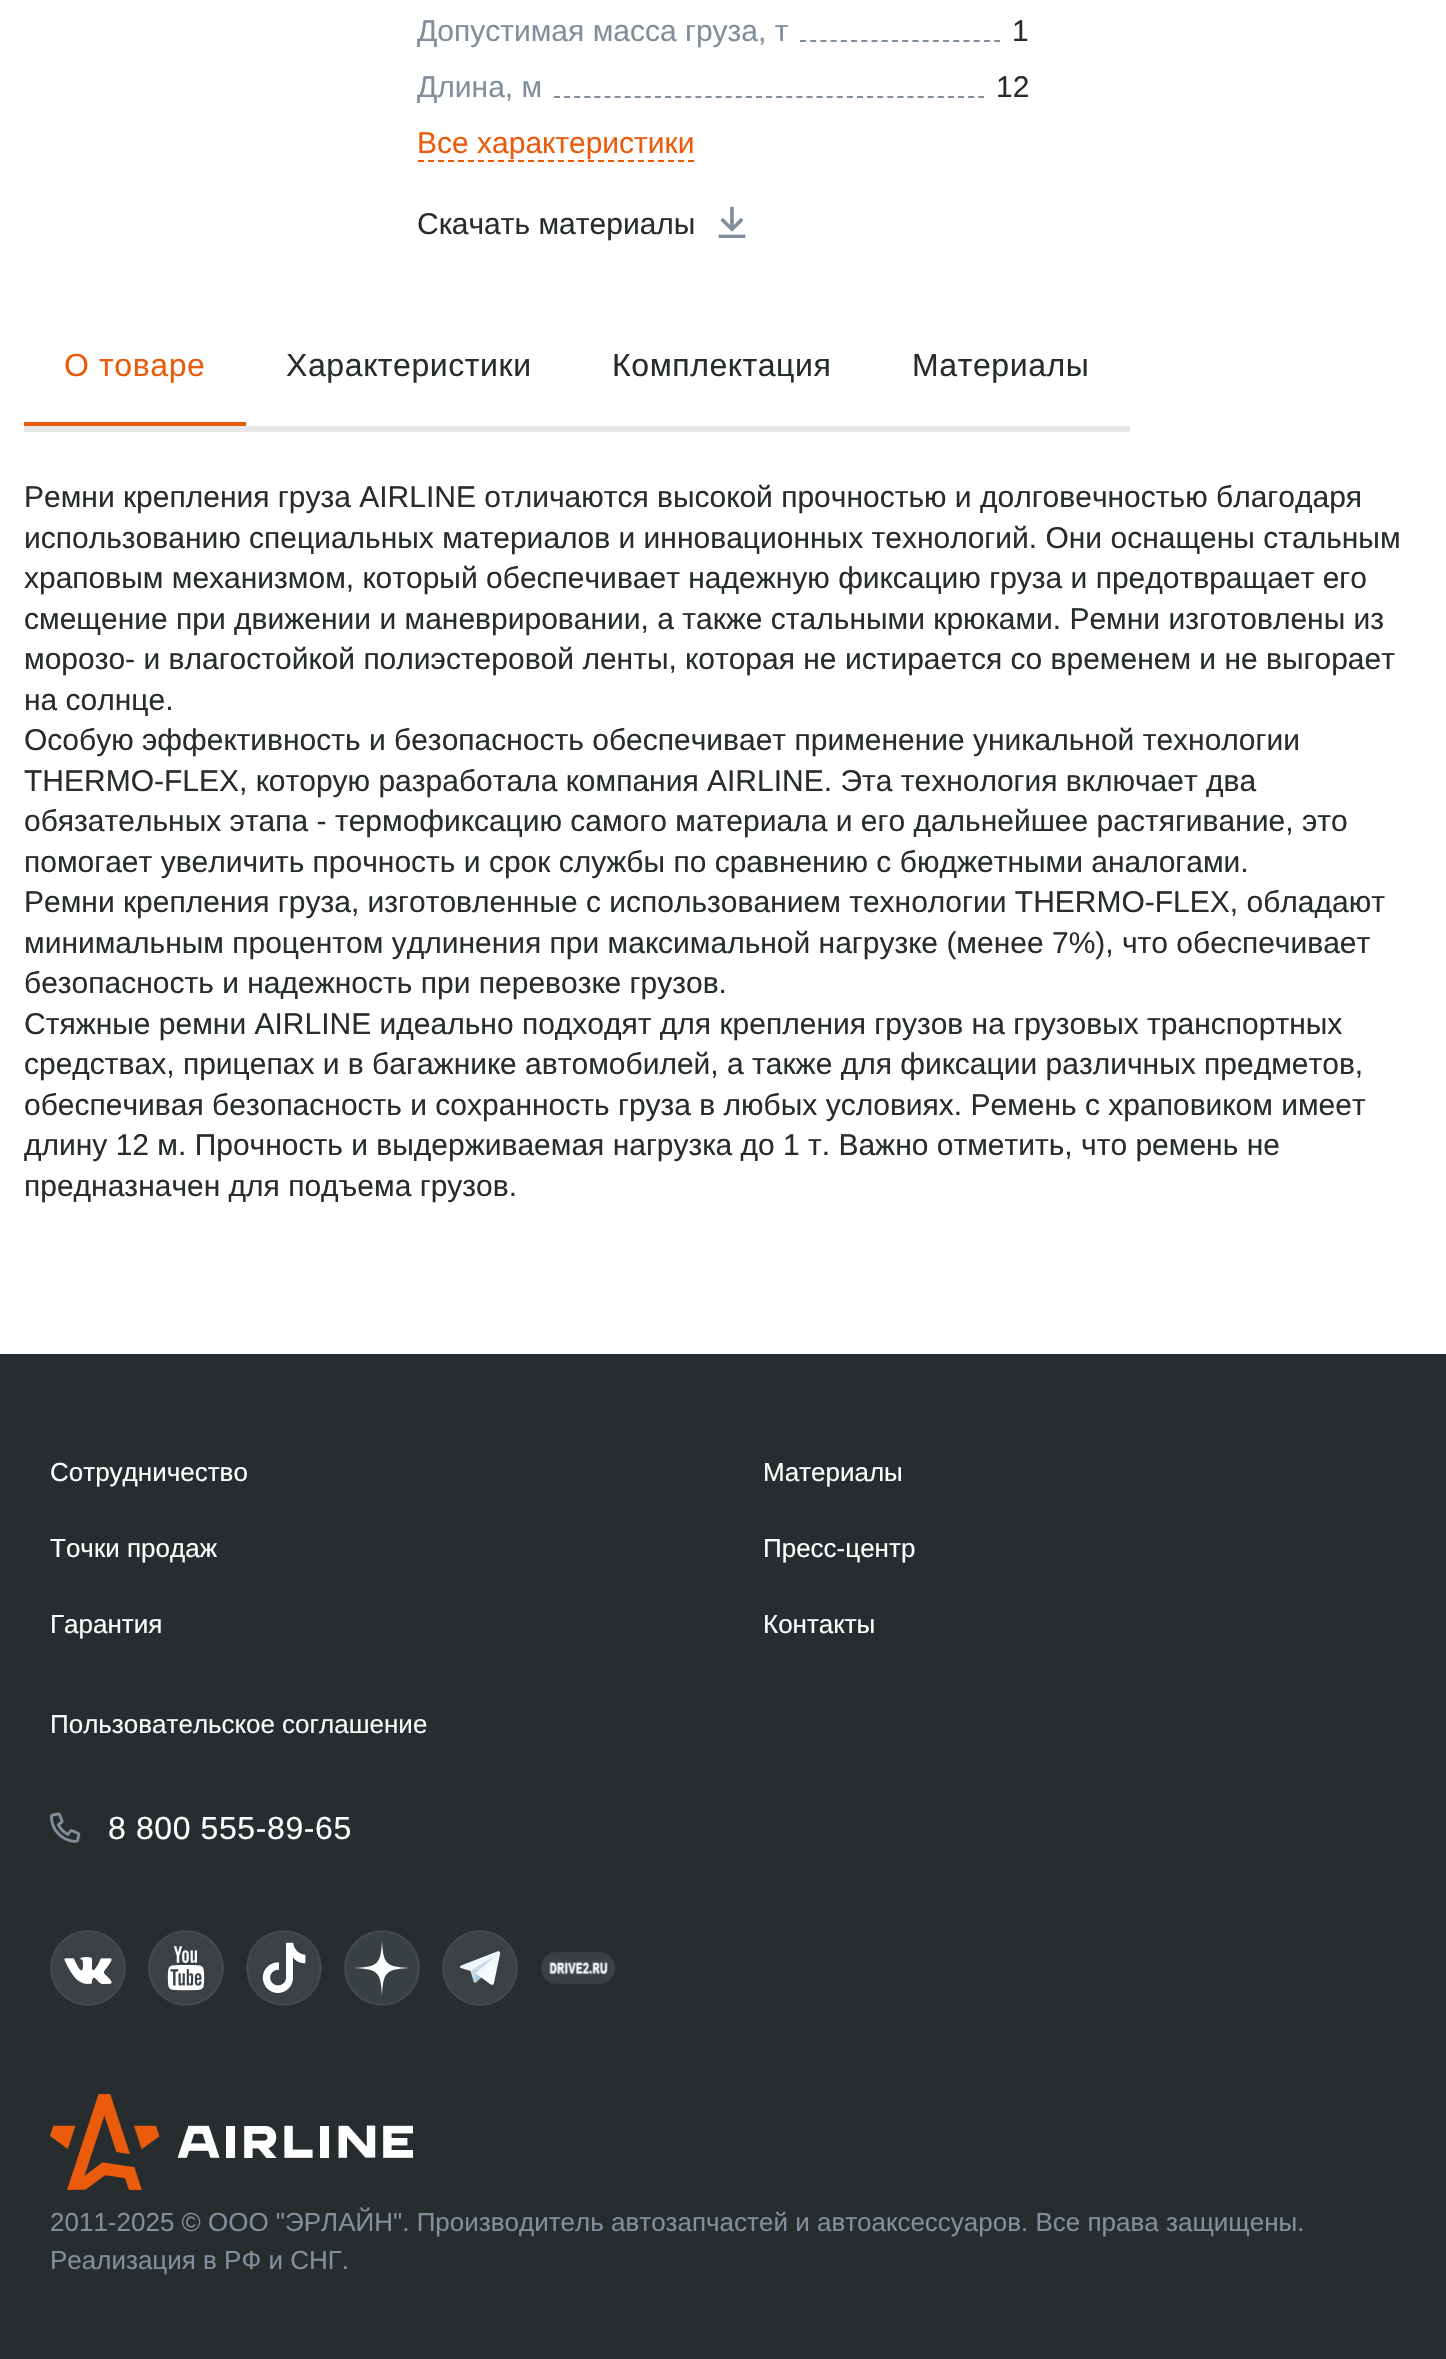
void draw(SkCanvas* canvas) {
	SkPaint paint;
	paint.setAntiAlias(true);
	auto spacedText = [&](const char* s, float x, float y, const SkFont& font, const SkPaint& ink, float letter, float word) {
		std::vector<SkGlyphID> glyphs(font.countText(s, strlen(s), SkTextEncoding::kUTF8));
		std::vector<float> xs(glyphs.size());
		font.textToGlyphs(s, strlen(s), SkTextEncoding::kUTF8, glyphs);
		font.getXPos(glyphs, xs, x);
		float extra = 0;
		for (size_t i = 0; i < glyphs.size(); i++) {
			xs[i] += extra;
			extra += letter + word * (glyphs[i] == font.unicharToGlyph(' '));
		}
		canvas->drawTextBlob(SkTextBlob::MakeFromPosHGlyphs(glyphs, xs, y, font), 0, 0, ink);
	};
	auto svgPath = [&](const char* data, bool evenOdd = false) {
		SkPath result = *SkParsePath::FromSVGString(data);
		if (evenOdd) result.setFillType(SkPathFillType::kEvenOdd);
		return result;
	};
	canvas->clear(0xffffffff);
	SkFont f1(fontMgr->matchFamilyStyle("Liberation Sans", SkFontStyle::Normal()), 30);
	f1.setSubpixel(true);
	paint.setColor(0xff828e9b);
	canvas->drawString("Допустимая масса груза, т", 417, 41, f1, paint);
	paint.setStroke(true);
	paint.setStrokeWidth(2);
	paint.setPathEffect(SkDashPathEffect::Make({{6, 4.22f}}, 0));
	canvas->drawPath(svgPath("M800 41H1000"), paint);
	paint.setPathEffect(nullptr);
	paint.setStroke(false);
	paint.setColor(0xff272c2e);
	canvas->drawString("1", 1012, 41, f1, paint);
	paint.setColor(0xff828e9b);
	canvas->drawString("Длина, м", 417, 97, f1, paint);
	paint.setStroke(true);
	paint.setPathEffect(SkDashPathEffect::Make({{6, 4.1f}}, 0));
	canvas->drawPath(svgPath("M554 97H984"), paint);
	paint.setPathEffect(nullptr);
	paint.setStroke(false);
	paint.setColor(0xff272c2e);
	canvas->drawString("12", 996, 97, f1, paint);
	paint.setColor(0xffea5b0c);
	canvas->drawString("Все характеристики", 417, 153, f1, paint);
	paint.setStroke(true);
	paint.setPathEffect(SkDashPathEffect::Make({{6, 4}}, 0));
	canvas->drawPath(svgPath("M418 161H694"), paint);
	paint.setPathEffect(nullptr);
	paint.setStroke(false);
	paint.setColor(0xff272c2e);
	canvas->drawString("Скачать материалы", 417, 234, f1, paint);
	canvas->drawImageRect(SkImages::DeferredFromEncodedData(SkData::MakeFromFileName("img1.png")), SkRect::MakeXYWH(718, 206, 28, 32), SkSamplingOptions());
	paint.setColor(0xffe7e7e7);
	canvas->drawRect(SkRect::MakeXYWH(24, 426, 1106, 6), paint);
	paint.setColor(0xffea5b0c);
	canvas->drawRect(SkRect::MakeXYWH(24, 422, 222, 4), paint);
	SkFont f2(fontMgr->matchFamilyStyle("Liberation Sans", SkFontStyle::Normal()), 32);
	f2.setSubpixel(true);
	spacedText("О товаре", 64, 376, f2, paint, 0.6, 0);
	paint.setColor(0xff272c2e);
	spacedText("Характеристики", 286, 376, f2, paint, 0.6, 0);
	spacedText("Комплектация", 612, 376, f2, paint, 0.6, 0);
	spacedText("Материалы", 912, 376, f2, paint, 0.6, 0);
	canvas->drawString("Ремни крепления груза AIRLINE отличаются высокой прочностью и долговечностью благодаря", 24, 507, f1, paint);
	canvas->drawString("использованию специальных материалов и инновационных технологий. Они оснащены стальным", 24, 548, f1, paint);
	canvas->drawString("храповым механизмом, который обеспечивает надежную фиксацию груза и предотвращает его", 24, 588, f1, paint);
	canvas->drawString("смещение при движении и маневрировании, а также стальными крюками. Ремни изготовлены из", 24, 629, f1, paint);
	canvas->drawString("морозо- и влагостойкой полиэстеровой ленты, которая не истирается со временем и не выгорает", 24, 669, f1, paint);
	canvas->drawString("на солнце.", 24, 710, f1, paint);
	canvas->drawString("Особую эффективность и безопасность обеспечивает применение уникальной технологии", 24, 750, f1, paint);
	canvas->drawString("THERMO-FLEX, которую разработала компания AIRLINE. Эта технология включает два", 24, 791, f1, paint);
	canvas->drawString("обязательных этапа - термофиксацию самого материала и его дальнейшее растягивание, это", 24, 831, f1, paint);
	canvas->drawString("помогает увеличить прочность и срок службы по сравнению с бюджетными аналогами.", 24, 872, f1, paint);
	canvas->drawString("Ремни крепления груза, изготовленные с использованием технологии THERMO-FLEX, обладают", 24, 912, f1, paint);
	canvas->drawString("минимальным процентом удлинения при максимальной нагрузке (менее 7%), что обеспечивает", 24, 953, f1, paint);
	canvas->drawString("безопасность и надежность при перевозке грузов.", 24, 993, f1, paint);
	canvas->drawString("Стяжные ремни AIRLINE идеально подходят для крепления грузов на грузовых транспортных", 24, 1034, f1, paint);
	canvas->drawString("средствах, прицепах и в багажнике автомобилей, а также для фиксации различных предметов,", 24, 1074, f1, paint);
	canvas->drawString("обеспечивая безопасность и сохранность груза в любых условиях. Ремень с храповиком имеет", 24, 1115, f1, paint);
	canvas->drawString("длину 12 м. Прочность и выдерживаемая нагрузка до 1 т. Важно отметить, что ремень не", 24, 1155, f1, paint);
	canvas->drawString("предназначен для подъема грузов.", 24, 1196, f1, paint);
	canvas->drawRect(SkRect::MakeXYWH(0, 1354, 1446, 1005), paint);
	SkFont f3(fontMgr->matchFamilyStyle("Liberation Sans", SkFontStyle::Normal()), 26);
	f3.setSubpixel(true);
	paint.setColor(0xffffffff);
	canvas->drawString("Сотрудничество", 50, 1481, f3, paint);
	canvas->drawString("Точки продаж", 50, 1557, f3, paint);
	canvas->drawString("Гарантия", 50, 1633, f3, paint);
	canvas->drawString("Материалы", 763, 1481, f3, paint);
	canvas->drawString("Пресс-центр", 763, 1557, f3, paint);
	canvas->drawString("Контакты", 763, 1633, f3, paint);
	paint.setColor(0xfff9f9f9);
	canvas->drawString("Пользовательское соглашение", 50, 1733, f3, paint);
	canvas->drawImageRect(SkImages::DeferredFromEncodedData(SkData::MakeFromFileName("img2.png")), SkRect::MakeXYWH(50, 1812, 31, 31), SkSamplingOptions());
	paint.setColor(0xffffffff);
	spacedText("8 800 555-89-65", 108, 1839, f2, paint, 0.6, 0);
	canvas->drawImageRect(SkImages::DeferredFromEncodedData(SkData::MakeFromFileName("img3.png")), SkRect::MakeXYWH(50, 1930, 76, 76), SkSamplingOptions());
	canvas->drawImageRect(SkImages::DeferredFromEncodedData(SkData::MakeFromFileName("img4.png")), SkRect::MakeXYWH(148, 1930, 76, 76), SkSamplingOptions());
	canvas->drawImageRect(SkImages::DeferredFromEncodedData(SkData::MakeFromFileName("img5.png")), SkRect::MakeXYWH(246, 1930, 76, 76), SkSamplingOptions());
	paint.setColor(0xff394044);
	canvas->drawCircle(382, 1968, 37, paint);
	paint.setStroke(true);
	paint.setColor(0x33828e9b);
	canvas->drawCircle(382, 1968, 37, paint);
	paint.setStroke(false);
	paint.setColor(0xffffffff);
	canvas->drawPath(svgPath("M410 1968C386 1967 383 1964 382 1940C381 1964 378 1967 354 1968C378 1969 381 1972 382 1996C383 1972 386 1969 410 1968Z", true), paint);
	canvas->drawImageRect(SkImages::DeferredFromEncodedData(SkData::MakeFromFileName("img6.png")), SkRect::MakeXYWH(442, 1930, 76, 76), SkSamplingOptions());
	canvas->drawImageRect(SkImages::DeferredFromEncodedData(SkData::MakeFromFileName("img7.png")), SkRect::MakeXYWH(541, 1952, 74, 32), SkSamplingOptions());
	canvas->drawImageRect(SkImages::DeferredFromEncodedData(SkData::MakeFromFileName("img8.png")), SkRect::MakeXYWH(50, 2094, 363, 96), SkSamplingOptions());
	paint.setColor(0xff828e9b);
	canvas->drawString("2011-2025 © ООО \"ЭРЛАЙН\". Производитель автозапчастей и автоаксессуаров. Все права защищены.", 50, 2231, f3, paint);
	canvas->drawString("Реализация в РФ и СНГ.", 50, 2269, f3, paint);
}
